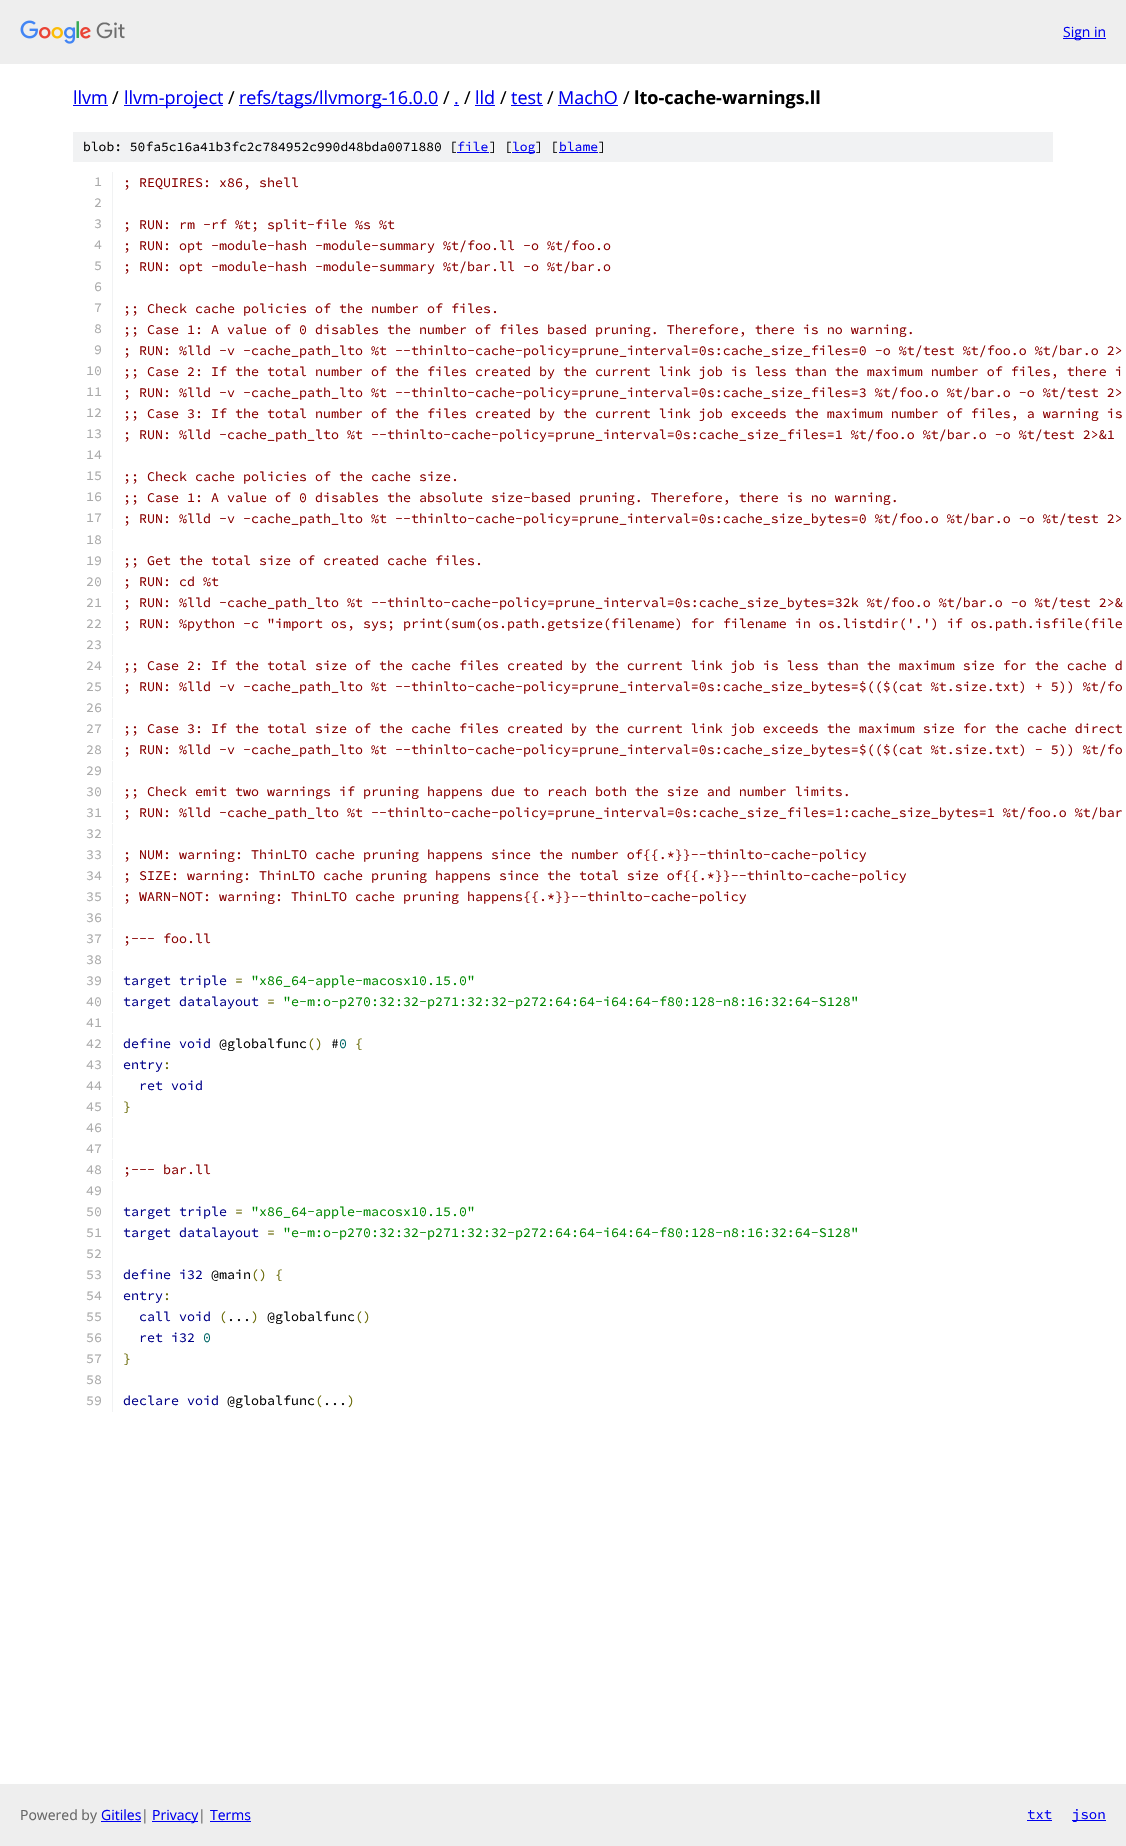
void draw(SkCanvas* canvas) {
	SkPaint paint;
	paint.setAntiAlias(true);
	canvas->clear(0xffffffff);
	paint.setColor(0xffeeeeee);
	canvas->drawRect(SkRect::MakeXYWH(0, 0, 1126, 64), paint);
	canvas->drawImageRect(SkImages::DeferredFromEncodedData(SkData::MakeFromFileName("img1.png")), SkRect::MakeXYWH(20, 20, 105, 24), SkSamplingOptions());
	paint.setColor(0xff0000ee);
	canvas->drawRect(SkRect::MakeXYWH(1063, 38, 43, 1), paint);
	SkFont f1(fontMgr->matchFamilyStyle("Open Sans", SkFontStyle::Normal()), 14);
	f1.setSubpixel(true);
	canvas->drawString("Sign in", 1063, 37, f1, paint);
	SkFont f2(fontMgr->matchFamilyStyle("Open Sans", SkFontStyle::Normal()), 18);
	f2.setSubpixel(true);
	canvas->drawString("llvm", 73, 104, f2, paint);
	canvas->drawRect(SkRect::MakeXYWH(73, 105, 35, 1), paint);
	paint.setColor(0xff000000);
	canvas->drawString("/", 112, 104, f2, paint);
	paint.setColor(0xff0000ee);
	canvas->drawRect(SkRect::MakeXYWH(124, 105, 99, 1), paint);
	canvas->drawString("llvm-project", 124, 104, f2, paint);
	paint.setColor(0xff000000);
	canvas->drawString("/", 228, 104, f2, paint);
	paint.setColor(0xff0000ee);
	canvas->drawRect(SkRect::MakeXYWH(239, 105, 199, 1), paint);
	canvas->drawString("refs/tags/llvmorg-16.0.0", 239, 104, f2, paint);
	paint.setColor(0xff000000);
	canvas->drawString("/", 443, 104, f2, paint);
	paint.setColor(0xff0000ee);
	canvas->drawString(".", 454, 104, f2, paint);
	canvas->drawRect(SkRect::MakeXYWH(454, 105, 5, 1), paint);
	paint.setColor(0xff000000);
	canvas->drawString("/", 464, 104, f2, paint);
	paint.setColor(0xff0000ee);
	canvas->drawString("lld", 475, 104, f2, paint);
	canvas->drawRect(SkRect::MakeXYWH(475, 105, 20, 1), paint);
	paint.setColor(0xff000000);
	canvas->drawString("/", 500, 104, f2, paint);
	paint.setColor(0xff0000ee);
	canvas->drawString("test", 511, 104, f2, paint);
	canvas->drawRect(SkRect::MakeXYWH(511, 105, 32, 1), paint);
	paint.setColor(0xff000000);
	canvas->drawString("/", 547, 104, f2, paint);
	paint.setColor(0xff0000ee);
	canvas->drawString("MachO", 558, 104, f2, paint);
	canvas->drawRect(SkRect::MakeXYWH(558, 105, 60, 1), paint);
	paint.setColor(0xff000000);
	canvas->drawString("/", 623, 104, f2, paint);
	SkFont f3(fontMgr->matchFamilyStyle("Open Sans", SkFontStyle::Bold()), 18);
	f3.setSubpixel(true);
	canvas->drawString("lto-cache-warnings.ll", 634, 104, f3, paint);
	paint.setColor(0xfff1f2f3);
	canvas->drawRect(SkRect::MakeXYWH(73, 132, 980, 30), paint);
	SkFont f4(fontMgr->matchFamilyStyle("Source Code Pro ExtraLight", SkFontStyle(200, SkFontStyle::kNormal_Width, SkFontStyle::kUpright_Slant)), 13);
	f4.setSubpixel(true);
	paint.setColor(0xff000000);
	canvas->drawString("blob: 50fa5c16a41b3fc2c784952c990d48bda0071880 [", 83, 151, f4, paint);
	paint.setColor(0xff0000ee);
	canvas->drawString("file", 457, 151, f4, paint);
	canvas->drawRect(SkRect::MakeXYWH(457, 152, 32, 1), paint);
	paint.setColor(0xff000000);
	canvas->drawString("] [", 489, 151, f4, paint);
	paint.setColor(0xff0000ee);
	canvas->drawRect(SkRect::MakeXYWH(512, 152, 23, 1), paint);
	canvas->drawString("log", 512, 151, f4, paint);
	paint.setColor(0xff000000);
	canvas->drawString("] [", 535, 151, f4, paint);
	paint.setColor(0xff0000ee);
	canvas->drawString("blame", 559, 151, f4, paint);
	canvas->drawRect(SkRect::MakeXYWH(559, 152, 39, 1), paint);
	paint.setColor(0xff000000);
	canvas->drawString("]", 598, 151, f4, paint);
	paint.setColor(0xfff1f2f3);
	canvas->drawRect(SkRect::MakeXYWH(112, 172, 1, 357), paint);
	SkFont f5(fontMgr->matchFamilyStyle("Source Code Pro ExtraLight", SkFontStyle(200, SkFontStyle::kNormal_Width, SkFontStyle::kUpright_Slant)), 13.33);
	f5.setSubpixel(true);
	paint.setColor(0xffaaaaaa);
	canvas->drawString("1", 94, 186, f5, paint);
	paint.setColor(0xff880000);
	canvas->drawString("; REQUIRES: x86, shell", 123, 187, f5, paint);
	paint.setColor(0xffaaaaaa);
	canvas->drawString("2", 94, 207, f5, paint);
	canvas->drawString("3", 94, 228, f5, paint);
	paint.setColor(0xff880000);
	canvas->drawString("; RUN: rm -rf %t; split-file %s %t", 123, 229, f5, paint);
	paint.setColor(0xffaaaaaa);
	canvas->drawString("4", 94, 249, f5, paint);
	paint.setColor(0xff880000);
	canvas->drawString("; RUN: opt -module-hash -module-summary %t/foo.ll -o %t/foo.o", 123, 250, f5, paint);
	paint.setColor(0xffaaaaaa);
	canvas->drawString("5", 94, 270, f5, paint);
	paint.setColor(0xff880000);
	canvas->drawString("; RUN: opt -module-hash -module-summary %t/bar.ll -o %t/bar.o", 123, 271, f5, paint);
	paint.setColor(0xffaaaaaa);
	canvas->drawString("6", 94, 291, f5, paint);
	canvas->drawString("7", 94, 312, f5, paint);
	paint.setColor(0xff880000);
	canvas->drawString(";; Check cache policies of the number of files.", 123, 313, f5, paint);
	paint.setColor(0xffaaaaaa);
	canvas->drawString("8", 94, 333, f5, paint);
	paint.setColor(0xff880000);
	canvas->drawString(";; Case 1: A value of 0 disables the number of files based pruning. Therefore, there is no warning.", 123, 334, f5, paint);
	paint.setColor(0xffaaaaaa);
	canvas->drawString("9", 94, 354, f5, paint);
	paint.setColor(0xff880000);
	canvas->drawString("; RUN: %lld -v -cache_path_lto %t --thinlto-cache-policy=prune_interval=0s:cache_size_files=0 -o %t/test %t/foo.o %t/bar.o 2>", 123, 355, f5, paint);
	paint.setColor(0xffaaaaaa);
	canvas->drawString("10", 86, 375, f5, paint);
	paint.setColor(0xff880000);
	canvas->drawString(";; Case 2: If the total number of the files created by the current link job is less than the maximum number of files, there i", 123, 376, f5, paint);
	paint.setColor(0xffaaaaaa);
	canvas->drawString("11", 86, 396, f5, paint);
	paint.setColor(0xff880000);
	canvas->drawString("; RUN: %lld -v -cache_path_lto %t --thinlto-cache-policy=prune_interval=0s:cache_size_files=3 %t/foo.o %t/bar.o -o %t/test 2>", 123, 397, f5, paint);
	paint.setColor(0xffaaaaaa);
	canvas->drawString("12", 86, 417, f5, paint);
	paint.setColor(0xff880000);
	canvas->drawString(";; Case 3: If the total number of the files created by the current link job exceeds the maximum number of files, a warning is", 123, 418, f5, paint);
	paint.setColor(0xffaaaaaa);
	canvas->drawString("13", 86, 438, f5, paint);
	paint.setColor(0xff880000);
	canvas->drawString("; RUN: %lld -cache_path_lto %t --thinlto-cache-policy=prune_interval=0s:cache_size_files=1 %t/foo.o %t/bar.o -o %t/test 2>&1", 123, 439, f5, paint);
	paint.setColor(0xffaaaaaa);
	canvas->drawString("14", 86, 459, f5, paint);
	canvas->drawString("15", 86, 480, f5, paint);
	paint.setColor(0xff880000);
	canvas->drawString(";; Check cache policies of the cache size.", 123, 481, f5, paint);
	paint.setColor(0xffaaaaaa);
	canvas->drawString("16", 86, 501, f5, paint);
	paint.setColor(0xff880000);
	canvas->drawString(";; Case 1: A value of 0 disables the absolute size-based pruning. Therefore, there is no warning.", 123, 502, f5, paint);
	paint.setColor(0xffaaaaaa);
	canvas->drawString("17", 86, 522, f5, paint);
	paint.setColor(0xff880000);
	canvas->drawString("; RUN: %lld -v -cache_path_lto %t --thinlto-cache-policy=prune_interval=0s:cache_size_bytes=0 %t/foo.o %t/bar.o -o %t/test 2>", 123, 523, f5, paint);
	paint.setColor(0xfff1f2f3);
	canvas->drawRect(SkRect::MakeXYWH(112, 530, 1, 20), paint);
	paint.setColor(0xffaaaaaa);
	canvas->drawString("18", 86, 544, f5, paint);
	paint.setColor(0xfff1f2f3);
	canvas->drawRect(SkRect::MakeXYWH(112, 551, 1, 20), paint);
	paint.setColor(0xffaaaaaa);
	canvas->drawString("19", 86, 565, f5, paint);
	paint.setColor(0xff880000);
	canvas->drawString(";; Get the total size of created cache files.", 123, 565, f5, paint);
	paint.setColor(0xfff1f2f3);
	canvas->drawRect(SkRect::MakeXYWH(112, 572, 1, 20), paint);
	paint.setColor(0xffaaaaaa);
	canvas->drawString("20", 86, 586, f5, paint);
	paint.setColor(0xff880000);
	canvas->drawString("; RUN: cd %t", 123, 586, f5, paint);
	paint.setColor(0xfff1f2f3);
	canvas->drawRect(SkRect::MakeXYWH(112, 593, 1, 20), paint);
	paint.setColor(0xffaaaaaa);
	canvas->drawString("21", 86, 607, f5, paint);
	paint.setColor(0xff880000);
	canvas->drawString("; RUN: %lld -cache_path_lto %t --thinlto-cache-policy=prune_interval=0s:cache_size_bytes=32k %t/foo.o %t/bar.o -o %t/test 2>&", 123, 607, f5, paint);
	paint.setColor(0xfff1f2f3);
	canvas->drawRect(SkRect::MakeXYWH(112, 614, 1, 20), paint);
	paint.setColor(0xffaaaaaa);
	canvas->drawString("22", 86, 628, f5, paint);
	paint.setColor(0xff880000);
	canvas->drawString("; RUN: %python -c \"import os, sys; print(sum(os.path.getsize(filename) for filename in os.listdir('.') if os.path.isfile(file", 123, 628, f5, paint);
	paint.setColor(0xfff1f2f3);
	canvas->drawRect(SkRect::MakeXYWH(112, 635, 1, 20), paint);
	paint.setColor(0xffaaaaaa);
	canvas->drawString("23", 86, 649, f5, paint);
	paint.setColor(0xfff1f2f3);
	canvas->drawRect(SkRect::MakeXYWH(112, 656, 1, 20), paint);
	paint.setColor(0xffaaaaaa);
	canvas->drawString("24", 86, 670, f5, paint);
	paint.setColor(0xff880000);
	canvas->drawString(";; Case 2: If the total size of the cache files created by the current link job is less than the maximum size for the cache d", 123, 670, f5, paint);
	paint.setColor(0xfff1f2f3);
	canvas->drawRect(SkRect::MakeXYWH(112, 677, 1, 20), paint);
	paint.setColor(0xffaaaaaa);
	canvas->drawString("25", 86, 691, f5, paint);
	paint.setColor(0xff880000);
	canvas->drawString("; RUN: %lld -v -cache_path_lto %t --thinlto-cache-policy=prune_interval=0s:cache_size_bytes=$(($(cat %t.size.txt) + 5)) %t/fo", 123, 691, f5, paint);
	paint.setColor(0xfff1f2f3);
	canvas->drawRect(SkRect::MakeXYWH(112, 698, 1, 20), paint);
	paint.setColor(0xffaaaaaa);
	canvas->drawString("26", 86, 712, f5, paint);
	paint.setColor(0xfff1f2f3);
	canvas->drawRect(SkRect::MakeXYWH(112, 719, 1, 20), paint);
	paint.setColor(0xffaaaaaa);
	canvas->drawString("27", 86, 733, f5, paint);
	paint.setColor(0xff880000);
	canvas->drawString(";; Case 3: If the total size of the cache files created by the current link job exceeds the maximum size for the cache direct", 123, 733, f5, paint);
	paint.setColor(0xfff1f2f3);
	canvas->drawRect(SkRect::MakeXYWH(112, 740, 1, 20), paint);
	paint.setColor(0xffaaaaaa);
	canvas->drawString("28", 86, 754, f5, paint);
	paint.setColor(0xff880000);
	canvas->drawString("; RUN: %lld -v -cache_path_lto %t --thinlto-cache-policy=prune_interval=0s:cache_size_bytes=$(($(cat %t.size.txt) - 5)) %t/fo", 123, 754, f5, paint);
	paint.setColor(0xfff1f2f3);
	canvas->drawRect(SkRect::MakeXYWH(112, 761, 1, 20), paint);
	paint.setColor(0xffaaaaaa);
	canvas->drawString("29", 86, 775, f5, paint);
	paint.setColor(0xfff1f2f3);
	canvas->drawRect(SkRect::MakeXYWH(112, 782, 1, 20), paint);
	paint.setColor(0xffaaaaaa);
	canvas->drawString("30", 86, 796, f5, paint);
	paint.setColor(0xff880000);
	canvas->drawString(";; Check emit two warnings if pruning happens due to reach both the size and number limits.", 123, 796, f5, paint);
	paint.setColor(0xfff1f2f3);
	canvas->drawRect(SkRect::MakeXYWH(112, 803, 1, 20), paint);
	paint.setColor(0xffaaaaaa);
	canvas->drawString("31", 86, 817, f5, paint);
	paint.setColor(0xff880000);
	canvas->drawString("; RUN: %lld -cache_path_lto %t --thinlto-cache-policy=prune_interval=0s:cache_size_files=1:cache_size_bytes=1 %t/foo.o %t/bar", 123, 817, f5, paint);
	paint.setColor(0xfff1f2f3);
	canvas->drawRect(SkRect::MakeXYWH(112, 824, 1, 20), paint);
	paint.setColor(0xffaaaaaa);
	canvas->drawString("32", 86, 838, f5, paint);
	paint.setColor(0xfff1f2f3);
	canvas->drawRect(SkRect::MakeXYWH(112, 845, 1, 20), paint);
	paint.setColor(0xffaaaaaa);
	canvas->drawString("33", 86, 859, f5, paint);
	paint.setColor(0xff880000);
	canvas->drawString("; NUM: warning: ThinLTO cache pruning happens since the number of{{.*}}--thinlto-cache-policy", 123, 859, f5, paint);
	paint.setColor(0xfff1f2f3);
	canvas->drawRect(SkRect::MakeXYWH(112, 866, 1, 20), paint);
	paint.setColor(0xffaaaaaa);
	canvas->drawString("34", 86, 880, f5, paint);
	paint.setColor(0xff880000);
	canvas->drawString("; SIZE: warning: ThinLTO cache pruning happens since the total size of{{.*}}--thinlto-cache-policy", 123, 880, f5, paint);
	paint.setColor(0xfff1f2f3);
	canvas->drawRect(SkRect::MakeXYWH(112, 887, 1, 20), paint);
	paint.setColor(0xffaaaaaa);
	canvas->drawString("35", 86, 901, f5, paint);
	paint.setColor(0xff880000);
	canvas->drawString("; WARN-NOT: warning: ThinLTO cache pruning happens{{.*}}--thinlto-cache-policy", 123, 901, f5, paint);
	paint.setColor(0xfff1f2f3);
	canvas->drawRect(SkRect::MakeXYWH(112, 908, 1, 20), paint);
	paint.setColor(0xffaaaaaa);
	canvas->drawString("36", 86, 922, f5, paint);
	paint.setColor(0xfff1f2f3);
	canvas->drawRect(SkRect::MakeXYWH(112, 929, 1, 20), paint);
	paint.setColor(0xffaaaaaa);
	canvas->drawString("37", 86, 943, f5, paint);
	paint.setColor(0xff880000);
	canvas->drawString(";--- foo.ll", 123, 943, f5, paint);
	paint.setColor(0xfff1f2f3);
	canvas->drawRect(SkRect::MakeXYWH(112, 950, 1, 20), paint);
	paint.setColor(0xffaaaaaa);
	canvas->drawString("38", 86, 964, f5, paint);
	paint.setColor(0xfff1f2f3);
	canvas->drawRect(SkRect::MakeXYWH(112, 971, 1, 20), paint);
	paint.setColor(0xffaaaaaa);
	canvas->drawString("39", 86, 985, f5, paint);
	paint.setColor(0xff000088);
	canvas->drawString("target triple", 123, 985, f5, paint);
	paint.setColor(0xff666600);
	canvas->drawString("=", 235, 985, f5, paint);
	paint.setColor(0xff008800);
	canvas->drawString("\"x86_64-apple-macosx10.15.0\"", 251, 985, f5, paint);
	paint.setColor(0xfff1f2f3);
	canvas->drawRect(SkRect::MakeXYWH(112, 992, 1, 20), paint);
	paint.setColor(0xffaaaaaa);
	canvas->drawString("40", 86, 1006, f5, paint);
	paint.setColor(0xff000088);
	canvas->drawString("target datalayout", 123, 1006, f5, paint);
	paint.setColor(0xff666600);
	canvas->drawString("=", 267, 1006, f5, paint);
	paint.setColor(0xff008800);
	canvas->drawString("\"e-m:o-p270:32:32-p271:32:32-p272:64:64-i64:64-f80:128-n8:16:32:64-S128\"", 283, 1006, f5, paint);
	paint.setColor(0xfff1f2f3);
	canvas->drawRect(SkRect::MakeXYWH(112, 1013, 1, 20), paint);
	paint.setColor(0xffaaaaaa);
	canvas->drawString("41", 86, 1027, f5, paint);
	paint.setColor(0xfff1f2f3);
	canvas->drawRect(SkRect::MakeXYWH(112, 1034, 1, 20), paint);
	paint.setColor(0xffaaaaaa);
	canvas->drawString("42", 86, 1048, f5, paint);
	paint.setColor(0xff000088);
	canvas->drawString("define void", 123, 1048, f5, paint);
	paint.setColor(0xff000000);
	canvas->drawString("@globalfunc", 219, 1048, f5, paint);
	paint.setColor(0xff666600);
	canvas->drawString("()", 307, 1048, f5, paint);
	paint.setColor(0xff000000);
	canvas->drawString("#", 331, 1048, f5, paint);
	paint.setColor(0xff006666);
	canvas->drawString("0", 339, 1048, f5, paint);
	paint.setColor(0xff666600);
	canvas->drawString("{", 355, 1048, f5, paint);
	paint.setColor(0xfff1f2f3);
	canvas->drawRect(SkRect::MakeXYWH(112, 1055, 1, 20), paint);
	paint.setColor(0xffaaaaaa);
	canvas->drawString("43", 86, 1069, f5, paint);
	paint.setColor(0xff000088);
	canvas->drawString("entry", 123, 1069, f5, paint);
	paint.setColor(0xff666600);
	canvas->drawString(":", 163, 1069, f5, paint);
	paint.setColor(0xfff1f2f3);
	canvas->drawRect(SkRect::MakeXYWH(112, 1076, 1, 20), paint);
	paint.setColor(0xffaaaaaa);
	canvas->drawString("44", 86, 1090, f5, paint);
	paint.setColor(0xff000088);
	canvas->drawString("ret void", 139, 1090, f5, paint);
	paint.setColor(0xfff1f2f3);
	canvas->drawRect(SkRect::MakeXYWH(112, 1097, 1, 20), paint);
	paint.setColor(0xffaaaaaa);
	canvas->drawString("45", 86, 1111, f5, paint);
	paint.setColor(0xff666600);
	canvas->drawString("}", 123, 1111, f5, paint);
	paint.setColor(0xfff1f2f3);
	canvas->drawRect(SkRect::MakeXYWH(112, 1118, 1, 20), paint);
	paint.setColor(0xffaaaaaa);
	canvas->drawString("46", 86, 1132, f5, paint);
	paint.setColor(0xfff1f2f3);
	canvas->drawRect(SkRect::MakeXYWH(112, 1139, 1, 20), paint);
	paint.setColor(0xffaaaaaa);
	canvas->drawString("47", 86, 1153, f5, paint);
	paint.setColor(0xfff1f2f3);
	canvas->drawRect(SkRect::MakeXYWH(112, 1160, 1, 20), paint);
	paint.setColor(0xffaaaaaa);
	canvas->drawString("48", 86, 1174, f5, paint);
	paint.setColor(0xff880000);
	canvas->drawString(";--- bar.ll", 123, 1174, f5, paint);
	paint.setColor(0xfff1f2f3);
	canvas->drawRect(SkRect::MakeXYWH(112, 1181, 1, 231), paint);
	paint.setColor(0xffaaaaaa);
	canvas->drawString("49", 86, 1195, f5, paint);
	canvas->drawString("50", 86, 1216, f5, paint);
	paint.setColor(0xff000088);
	canvas->drawString("target triple", 123, 1216, f5, paint);
	paint.setColor(0xff666600);
	canvas->drawString("=", 235, 1216, f5, paint);
	paint.setColor(0xff008800);
	canvas->drawString("\"x86_64-apple-macosx10.15.0\"", 251, 1216, f5, paint);
	paint.setColor(0xffaaaaaa);
	canvas->drawString("51", 86, 1237, f5, paint);
	paint.setColor(0xff000088);
	canvas->drawString("target datalayout", 123, 1237, f5, paint);
	paint.setColor(0xff666600);
	canvas->drawString("=", 267, 1237, f5, paint);
	paint.setColor(0xff008800);
	canvas->drawString("\"e-m:o-p270:32:32-p271:32:32-p272:64:64-i64:64-f80:128-n8:16:32:64-S128\"", 283, 1237, f5, paint);
	paint.setColor(0xffaaaaaa);
	canvas->drawString("52", 86, 1258, f5, paint);
	canvas->drawString("53", 86, 1279, f5, paint);
	paint.setColor(0xff000088);
	canvas->drawString("define i32", 123, 1279, f5, paint);
	paint.setColor(0xff000000);
	canvas->drawString("@main", 211, 1279, f5, paint);
	paint.setColor(0xff666600);
	canvas->drawString("() {", 251, 1279, f5, paint);
	paint.setColor(0xffaaaaaa);
	canvas->drawString("54", 86, 1300, f5, paint);
	paint.setColor(0xff000088);
	canvas->drawString("entry", 123, 1300, f5, paint);
	paint.setColor(0xff666600);
	canvas->drawString(":", 163, 1300, f5, paint);
	paint.setColor(0xffaaaaaa);
	canvas->drawString("55", 86, 1321, f5, paint);
	paint.setColor(0xff000088);
	canvas->drawString("call void", 139, 1321, f5, paint);
	paint.setColor(0xff666600);
	canvas->drawString("(", 219, 1321, f5, paint);
	paint.setColor(0xff000000);
	canvas->drawString("...", 227, 1321, f5, paint);
	paint.setColor(0xff666600);
	canvas->drawString(")", 251, 1321, f5, paint);
	paint.setColor(0xff000000);
	canvas->drawString("@globalfunc", 267, 1321, f5, paint);
	paint.setColor(0xff666600);
	canvas->drawString("()", 355, 1321, f5, paint);
	paint.setColor(0xffaaaaaa);
	canvas->drawString("56", 86, 1342, f5, paint);
	paint.setColor(0xff000088);
	canvas->drawString("ret i32", 139, 1342, f5, paint);
	paint.setColor(0xff006666);
	canvas->drawString("0", 203, 1342, f5, paint);
	paint.setColor(0xffaaaaaa);
	canvas->drawString("57", 86, 1363, f5, paint);
	paint.setColor(0xff666600);
	canvas->drawString("}", 123, 1363, f5, paint);
	paint.setColor(0xffaaaaaa);
	canvas->drawString("58", 86, 1384, f5, paint);
	canvas->drawString("59", 86, 1405, f5, paint);
	paint.setColor(0xff000088);
	canvas->drawString("declare void", 123, 1405, f5, paint);
	paint.setColor(0xff000000);
	canvas->drawString("@globalfunc ...", 227, 1405, f5, paint);
	paint.setColor(0xff666600);
	canvas->drawString("(", 315, 1405, f5, paint);
	canvas->drawString(")", 347, 1405, f5, paint);
	paint.setColor(0xffeeeeee);
	canvas->drawRect(SkRect::MakeXYWH(0, 1784, 1126, 62), paint);
	paint.setColor(0xff666666);
	canvas->drawString("Powered by", 20, 1820, f1, paint);
	paint.setColor(0xff0000ee);
	canvas->drawString("Gitiles", 101, 1820, f1, paint);
	canvas->drawRect(SkRect::MakeXYWH(101, 1821, 40, 1), paint);
	paint.setColor(0xff666666);
	canvas->drawString("|", 141, 1820, f1, paint);
	paint.setColor(0xff0000ee);
	canvas->drawRect(SkRect::MakeXYWH(152, 1821, 46, 1), paint);
	canvas->drawString("Privacy", 152, 1820, f1, paint);
	paint.setColor(0xff666666);
	canvas->drawString("|", 198, 1820, f1, paint);
	paint.setColor(0xff0000ee);
	canvas->drawString("Terms", 210, 1820, f1, paint);
	canvas->drawRect(SkRect::MakeXYWH(210, 1821, 41, 1), paint);
	SkFont f6(fontMgr->matchFamilyStyle("Source Code Pro ExtraLight", SkFontStyle(200, SkFontStyle::kNormal_Width, SkFontStyle::kUpright_Slant)), 14);
	f6.setSubpixel(true);
	canvas->drawString("txt", 1027, 1819, f6, paint);
	canvas->drawRect(SkRect::MakeXYWH(1027, 1820, 25, 1), paint);
	canvas->drawRect(SkRect::MakeXYWH(1072, 1820, 34, 1), paint);
	canvas->drawString("json", 1072, 1819, f6, paint);
}
